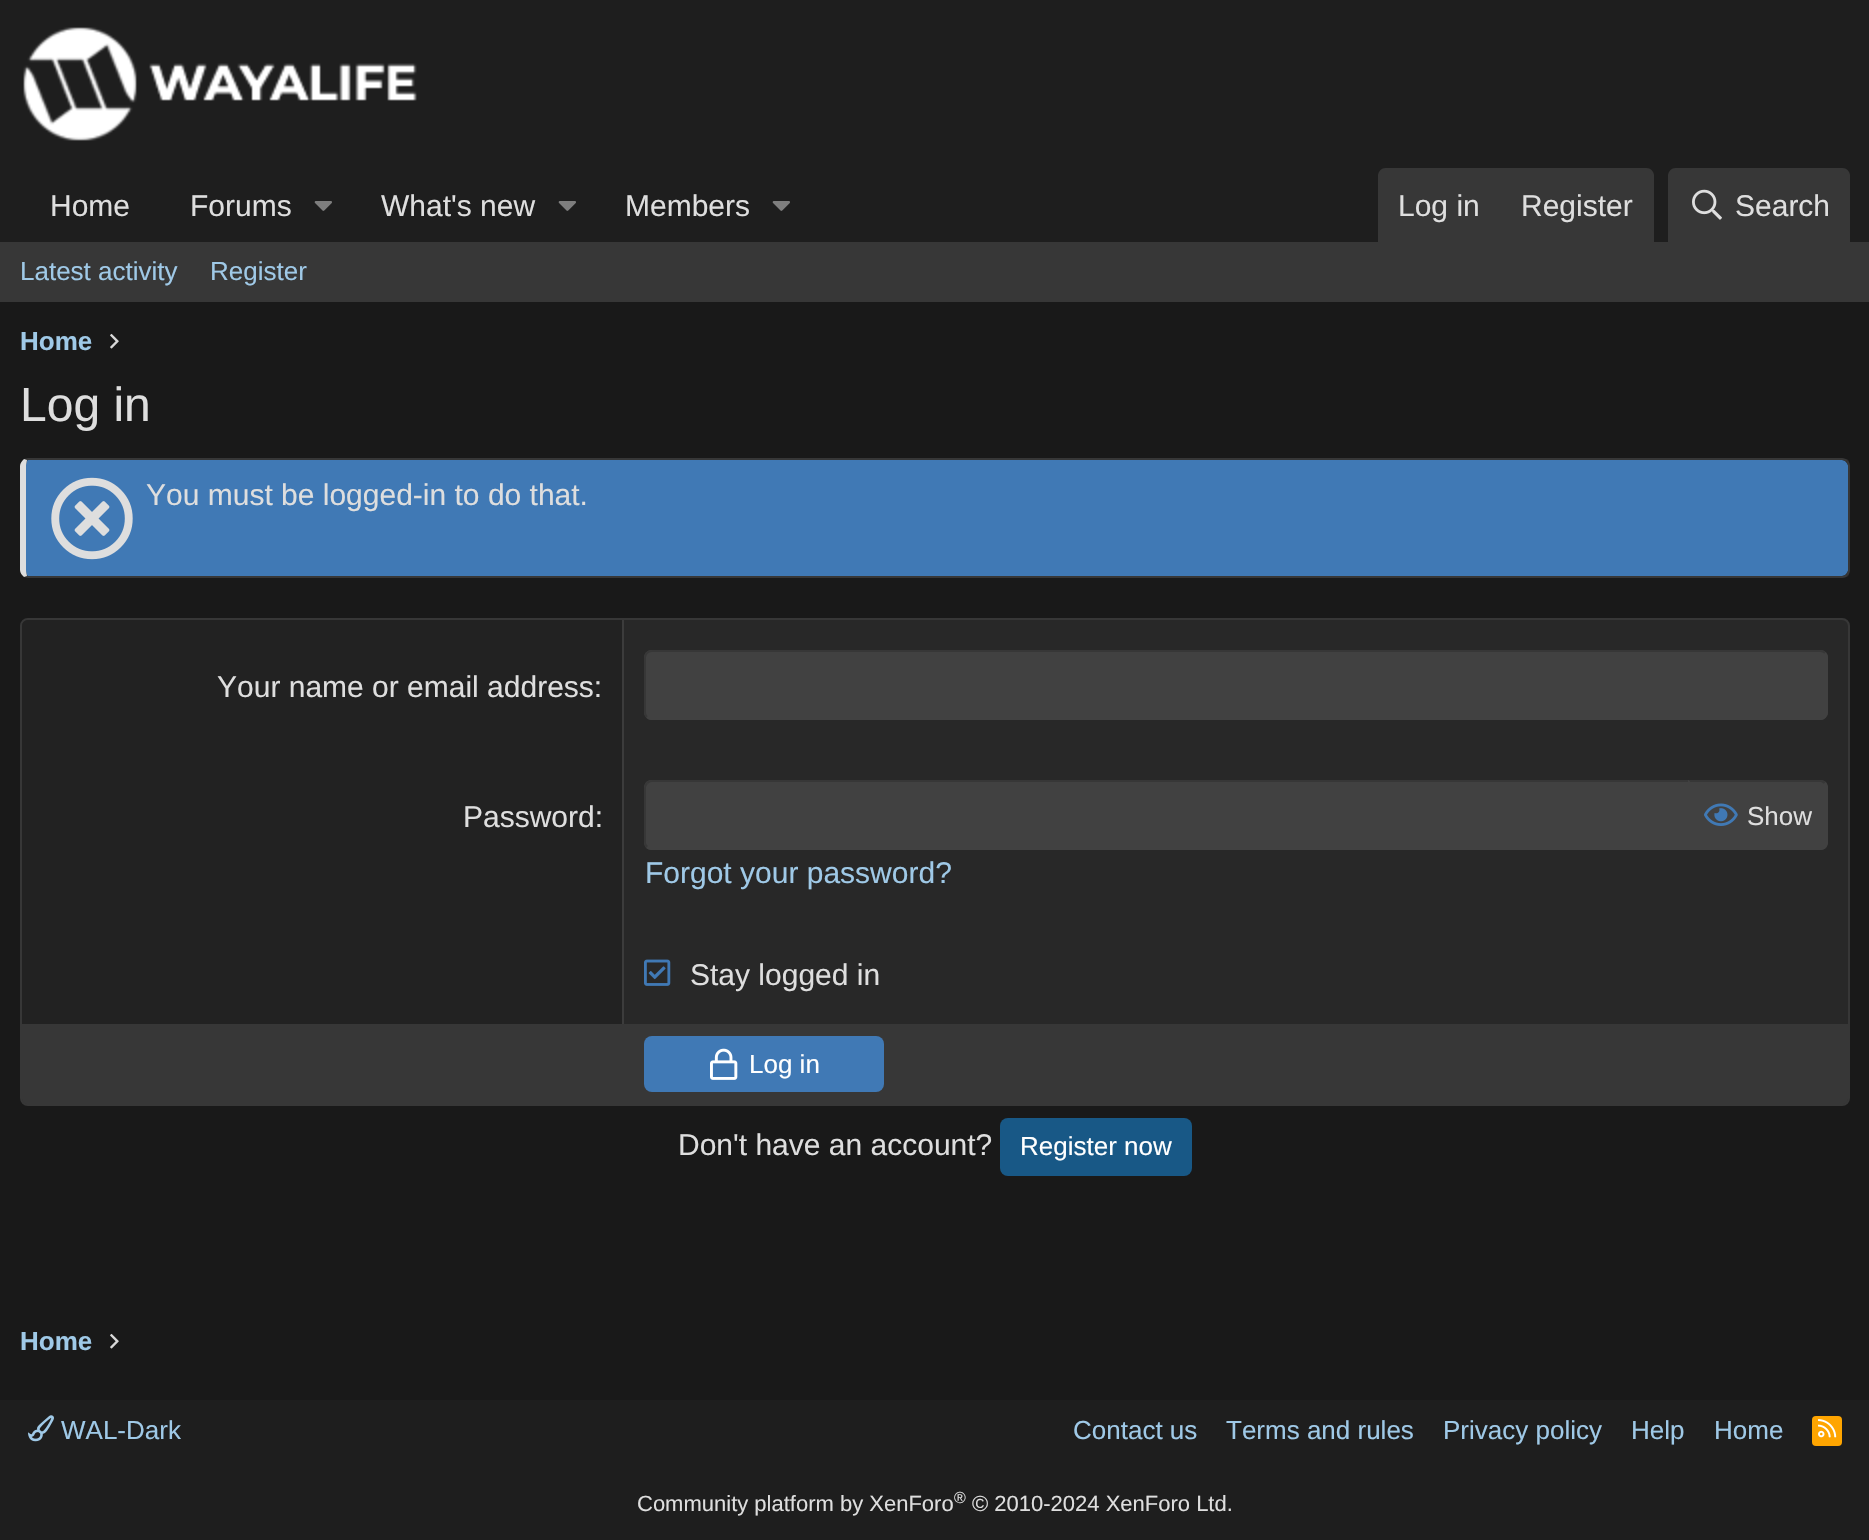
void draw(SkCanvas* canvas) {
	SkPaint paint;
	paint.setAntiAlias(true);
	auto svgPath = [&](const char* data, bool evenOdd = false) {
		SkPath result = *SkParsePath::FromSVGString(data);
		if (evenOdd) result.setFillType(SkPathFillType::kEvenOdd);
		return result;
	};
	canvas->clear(0xff191919);
	paint.setColor(0xff1e1e1e);
	canvas->drawRect(SkRect::MakeXYWH(0, 0, 1869, 242), paint);
	canvas->drawImageRect(SkImages::DeferredFromEncodedData(SkData::MakeFromFileName("img1.png")), SkRect::MakeXYWH(23, 27, 394, 114), SkSamplingOptions());
	SkFont f1(fontMgr->matchFamilyStyle("Liberation Sans", SkFontStyle::Normal()), 30);
	f1.setSubpixel(true);
	paint.setColor(0xffdedede);
	canvas->drawString("Home", 50, 216, f1, paint);
	canvas->drawString("Forums", 190, 216, f1, paint);
	canvas->drawImageRect(SkImages::DeferredFromEncodedData(SkData::MakeFromFileName("img2.png")), SkRect::MakeXYWH(314, 201, 18, 10), SkSamplingOptions());
	canvas->drawString("What's new", 381, 216, f1, paint);
	canvas->drawImageRect(SkImages::DeferredFromEncodedData(SkData::MakeFromFileName("img2.png")), SkRect::MakeXYWH(558, 201, 18, 10), SkSamplingOptions());
	canvas->drawString("Members", 625, 216, f1, paint);
	canvas->drawImageRect(SkImages::DeferredFromEncodedData(SkData::MakeFromFileName("img2.png")), SkRect::MakeXYWH(772, 201, 18, 10), SkSamplingOptions());
	paint.setColor(0xff373737);
	canvas->drawPath(svgPath("M1386 168H1646C1650.5 168 1654 171.5 1654 176V242H1378V176C1378 171.5 1381.5 168 1386 168Z"), paint);
	paint.setColor(0xffdedede);
	canvas->drawString("Log in", 1398, 216, f1, paint);
	canvas->drawString("Register", 1521, 216, f1, paint);
	paint.setColor(0xff373737);
	canvas->drawPath(svgPath("M1676 168H1842C1846.5 168 1850 171.5 1850 176V242H1668V176C1668 171.5 1671.5 168 1676 168Z"), paint);
	canvas->drawImageRect(SkImages::DeferredFromEncodedData(SkData::MakeFromFileName("img3.png")), SkRect::MakeXYWH(1692, 189, 30, 31), SkSamplingOptions());
	paint.setColor(0xffdedede);
	canvas->drawString("Search", 1735, 216, f1, paint);
	paint.setColor(0xff373737);
	canvas->drawRect(SkRect::MakeXYWH(0, 242, 1869, 60), paint);
	SkFont f2(fontMgr->matchFamilyStyle("Liberation Sans", SkFontStyle::Normal()), 26);
	f2.setSubpixel(true);
	paint.setColor(0xff9fc9e7);
	canvas->drawString("Latest activity", 20, 280, f2, paint);
	canvas->drawString("Register", 210, 280, f2, paint);
	SkFont f3(fontMgr->matchFamilyStyle("Liberation Sans", SkFontStyle::Bold()), 26);
	f3.setSubpixel(true);
	canvas->drawString("Home", 20, 350, f3, paint);
	canvas->drawImageRect(SkImages::DeferredFromEncodedData(SkData::MakeFromFileName("img4.png")), SkRect::MakeXYWH(110, 333, 9, 16), SkSamplingOptions());
	SkFont f4(fontMgr->matchFamilyStyle("Liberation Sans", SkFontStyle::Normal()), 48);
	f4.setSubpixel(true);
	paint.setColor(0xffdedede);
	canvas->drawString("Log in", 20, 421, f4, paint);
	paint.setColor(0xff4079b5);
	canvas->drawPath(svgPath("M28 460H1842C1845 460 1848 463 1848 466V570C1848 573 1845 576 1842 576H28C27 576 26 573 26 570V466C26 463 27 460 28 460Z"), paint);
	paint.setColor(0xff373737);
	canvas->drawPath(svgPath("M28 458L24 459L27 460H28H1842C1844 460 1845 461 1846 462L1848 460C1846 459 1844 458 1842 458Z"), paint);
	canvas->drawPath(svgPath("M1850 570V466C1850 464 1849 462 1848 460L1846 462L1848 465V571L1846 574L1848 576C1849 574 1850 572 1850 570Z"), paint);
	canvas->drawPath(svgPath("M28 578H1842C1844 578 1846 577 1848 576L1846 574C1845 575 1844 576 1842 576H28H27L24 577Z"), paint);
	paint.setColor(0xffdedede);
	canvas->drawPath(svgPath("M20 466V570C20 573 22 575 24 577L27 576C27 575 26 572 26 570V466C26 464 27 461 27 460L24 459C22 461 20 463 20 466Z"), paint);
	canvas->drawImageRect(SkImages::DeferredFromEncodedData(SkData::MakeFromFileName("img5.png")), SkRect::MakeXYWH(51, 477, 82, 83), SkSamplingOptions());
	canvas->drawString("You must be logged-in to do that.", 146, 505, f1, paint);
	paint.setColor(0xff282828);
	canvas->drawRoundRect(SkRect::MakeXYWH(21, 619, 1828, 486), 7, 7, paint);
	paint.setStroke(true);
	paint.setStrokeWidth(2);
	paint.setColor(0xff373737);
	canvas->drawRoundRect(SkRect::MakeXYWH(21, 619, 1828, 486), 7, 7, paint);
	paint.setStroke(false);
	paint.setColor(0xff222222);
	canvas->drawPath(svgPath("M28 620H624V750H22V626C22 622.5 24.5 620 28 620Z"), paint);
	paint.setColor(0xff3c3c3c);
	canvas->drawRect(SkRect::MakeXYWH(622, 620, 2, 404), paint);
	paint.setColor(0xffdedede);
	canvas->drawString("Your name or email address:", 217, 697, f1, paint);
	paint.setColor(0xff414141);
	canvas->drawRoundRect(SkRect::MakeXYWH(644, 650, 1184, 70), 8, 8, paint);
	paint.setStroke(true);
	canvas->drawPath(svgPath("M1825 653C1826.5 654.5 1827 656 1827 658V712C1827 714 1826.5 715.5 1825 717C1823.5 718.5 1822 719 1820 719H652C650 719 648.5 718.5 647 717"), paint);
	paint.setColor(0xff373737);
	canvas->drawPath(svgPath("M647 717C645.5 715.5 645 714 645 712V658C645 656 645.5 654.5 647 653C648.5 651.5 650 651 652 651H1820C1822 651 1823.5 651.5 1825 653"), paint);
	paint.setStroke(false);
	paint.setColor(0xff222222);
	canvas->drawRect(SkRect::MakeXYWH(22, 750, 600, 274), paint);
	paint.setColor(0xffdedede);
	canvas->drawString("Password:", 463, 827, f1, paint);
	paint.setColor(0xff414141);
	canvas->drawPath(svgPath("M652 780H1688V850H652C647.5 850 644 846.5 644 842V788C644 783.5 647.5 780 652 780Z"), paint);
	paint.setColor(0xff373737);
	canvas->drawPath(svgPath("M652 780C650 780 648 781 646 782L648 784C649 783 650 782 652 782H1688V780Z"), paint);
	paint.setColor(0xff414141);
	canvas->drawPath(svgPath("M1688 850V848H652C650 848 649 847 648 846L646 848C648 849 650 850 652 850Z"), paint);
	paint.setColor(0xff373737);
	canvas->drawPath(svgPath("M644 788V842C644 844 645 846 646 848L648 846C647 845 646 844 646 842V788C646 786 647 785 648 784L646 782C645 784 644 786 644 788Z"), paint);
	paint.setColor(0xff414141);
	canvas->drawPath(svgPath("M1688 780H1820C1824.5 780 1828 783.5 1828 788V842C1828 846.5 1824.5 850 1820 850H1688Z"), paint);
	paint.setColor(0xff373737);
	canvas->drawPath(svgPath("M1688 780L1690 782H1821L1824 784L1826 782C1824 781 1822 780 1820 780Z"), paint);
	paint.setColor(0xff414141);
	canvas->drawPath(svgPath("M1828 842V788C1828 786 1827 784 1826 782L1824 784C1825 785 1826 786 1826 788V842C1826 844 1825 845 1824 846L1826 848C1827 846 1828 844 1828 842Z"), paint);
	canvas->drawPath(svgPath("M1820 850C1822 850 1824 849 1826 848L1824 846L1821 848H1690L1688 850Z"), paint);
	canvas->drawPath(svgPath("M1688 780V850L1690 848V782Z"), paint);
	canvas->drawImageRect(SkImages::DeferredFromEncodedData(SkData::MakeFromFileName("img6.png")), SkRect::MakeXYWH(1704, 803, 34, 23), SkSamplingOptions());
	paint.setColor(0xffdedede);
	canvas->drawString("Show", 1747, 825, f2, paint);
	paint.setColor(0xff9fc9e7);
	canvas->drawString("Forgot your password?", 645, 883, f1, paint);
	canvas->drawImageRect(SkImages::DeferredFromEncodedData(SkData::MakeFromFileName("img7.png")), SkRect::MakeXYWH(644, 959, 27, 27), SkSamplingOptions());
	paint.setColor(0xffdedede);
	canvas->drawString("Stay logged in", 690, 985, f1, paint);
	paint.setColor(0xff373737);
	canvas->drawPath(svgPath("M22 1024H1848V1098C1848 1101.5 1845.5 1104 1842 1104H28C24.5 1104 22 1101.5 22 1098Z"), paint);
	paint.setColor(0xff4079b5);
	canvas->drawRoundRect(SkRect::MakeXYWH(644, 1036, 240, 56), 8, 8, paint);
	canvas->drawImageRect(SkImages::DeferredFromEncodedData(SkData::MakeFromFileName("img8.png")), SkRect::MakeXYWH(710, 1048, 28, 32), SkSamplingOptions());
	paint.setColor(0xffffffff);
	canvas->drawString("Log in", 749, 1073, f2, paint);
	paint.setColor(0xffdedede);
	canvas->drawString("Don't have an account?", 678, 1155, f1, paint);
	paint.setColor(0xff185886);
	canvas->drawRoundRect(SkRect::MakeXYWH(1000, 1118, 192, 58), 8, 8, paint);
	paint.setColor(0xffffffff);
	canvas->drawString("Register now", 1020, 1155, f2, paint);
	paint.setColor(0xff9fc9e7);
	canvas->drawString("Home", 20, 1350, f3, paint);
	canvas->drawImageRect(SkImages::DeferredFromEncodedData(SkData::MakeFromFileName("img4.png")), SkRect::MakeXYWH(110, 1333, 9, 16), SkSamplingOptions());
	paint.setColor(0xff1e1e1e);
	canvas->drawRect(SkRect::MakeXYWH(0, 1400, 1869, 140), paint);
	canvas->drawImageRect(SkImages::DeferredFromEncodedData(SkData::MakeFromFileName("img9.png")), SkRect::MakeXYWH(28, 1415, 26, 27), SkSamplingOptions());
	paint.setColor(0xff9fc9e7);
	canvas->drawString("WAL-Dark", 61, 1439, f2, paint);
	canvas->drawString("Contact us", 1073, 1439, f2, paint);
	canvas->drawString("Terms and rules", 1226, 1439, f2, paint);
	canvas->drawString("Privacy policy", 1443, 1439, f2, paint);
	canvas->drawString("Help", 1631, 1439, f2, paint);
	canvas->drawString("Home", 1714, 1439, f2, paint);
	paint.setColor(0xffffa500);
	canvas->drawRoundRect(SkRect::MakeXYWH(1812, 1416, 30, 30), 4, 4, paint);
	canvas->drawImageRect(SkImages::DeferredFromEncodedData(SkData::MakeFromFileName("img10.png")), SkRect::MakeXYWH(1818, 1419, 19, 19), SkSamplingOptions());
	SkFont f5(fontMgr->matchFamilyStyle("Liberation Sans", SkFontStyle::Normal()), 22);
	f5.setSubpixel(true);
	paint.setColor(0xffdedede);
	canvas->drawString("Community platform by XenForo", 637, 1511, f5, paint);
	SkFont f6(fontMgr->matchFamilyStyle("Liberation Sans", SkFontStyle::Normal()), 16);
	f6.setSubpixel(true);
	canvas->drawString("®", 954, 1503, f6, paint);
	canvas->drawString("© 2010-2024 XenForo Ltd.", 972, 1511, f5, paint);
}
